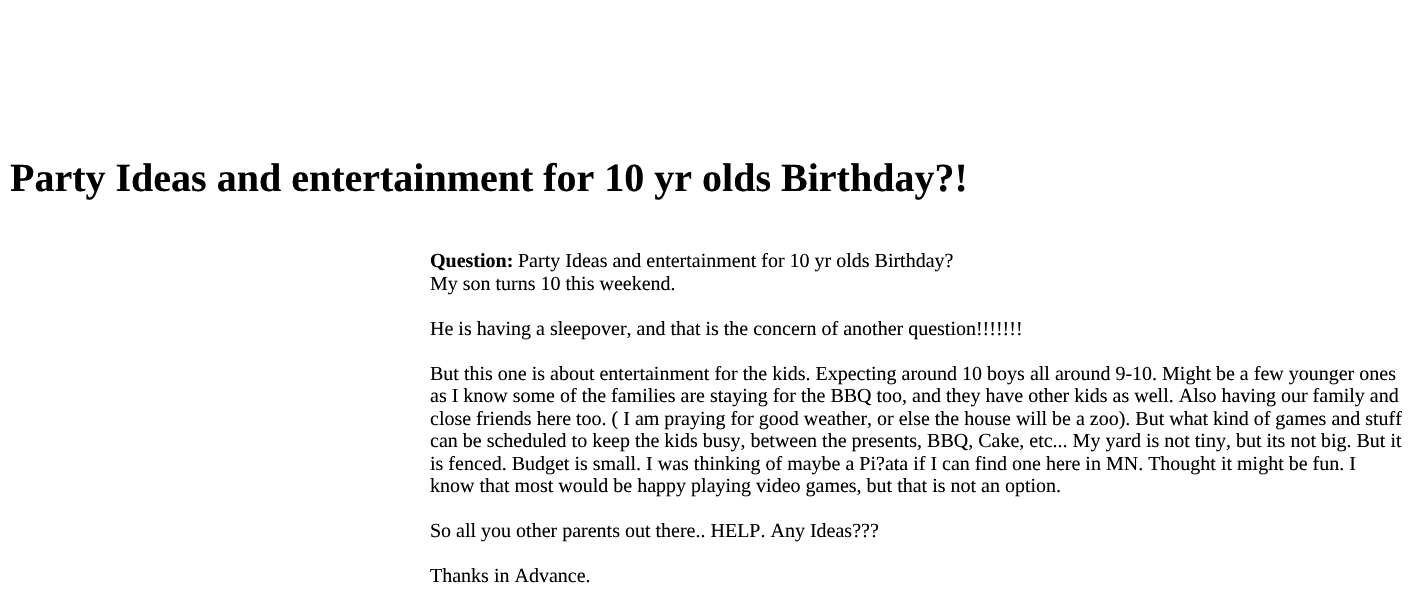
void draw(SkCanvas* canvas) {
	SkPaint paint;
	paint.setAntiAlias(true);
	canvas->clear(0xffffffff);
	SkFont f1(fontMgr->matchFamilyStyle("Liberation Serif", SkFontStyle::Bold()), 40);
	f1.setSubpixel(true);
	paint.setColor(0xff000000);
	canvas->drawString("Party Ideas and entertainment for 10 yr olds Birthday?!", 10, 191, f1, paint);
	SkFont f2(fontMgr->matchFamilyStyle("Liberation Serif", SkFontStyle::Bold()), 20);
	f2.setSubpixel(true);
	canvas->drawString("Question:", 430, 267, f2, paint);
	SkFont f3(fontMgr->matchFamilyStyle("Liberation Serif", SkFontStyle::Normal()), 20);
	f3.setSubpixel(true);
	canvas->drawString("Party Ideas and entertainment for 10 yr olds Birthday?", 518, 267, f3, paint);
	canvas->drawString("My son turns 10 this weekend.", 430, 290, f3, paint);
	canvas->drawString("He is having a sleepover, and that is the concern of another question!!!!!!!", 430, 335, f3, paint);
	canvas->drawString("But this one is about entertainment for the kids. Expecting around 10 boys all around 9-10. Might be a few younger ones", 430, 380, f3, paint);
	canvas->drawString("as I know some of the families are staying for the BBQ too, and they have other kids as well. Also having our family and", 430, 402, f3, paint);
	canvas->drawString("close friends here too. ( I am praying for good weather, or else the house will be a zoo). But what kind of games and stuff", 430, 425, f3, paint);
	canvas->drawString("can be scheduled to keep the kids busy, between the presents, BBQ, Cake, etc... My yard is not tiny, but its not big. But it", 430, 447, f3, paint);
	canvas->drawString("is fenced. Budget is small. I was thinking of maybe a Pi?ata if I can find one here in MN. Thought it might be fun. I", 430, 470, f3, paint);
	canvas->drawString("know that most would be happy playing video games, but that is not an option.", 430, 492, f3, paint);
	canvas->drawString("So all you other parents out there.. HELP. Any Ideas?\077?", 430, 537, f3, paint);
	canvas->drawString("Thanks in Advance.", 430, 582, f3, paint);
}
